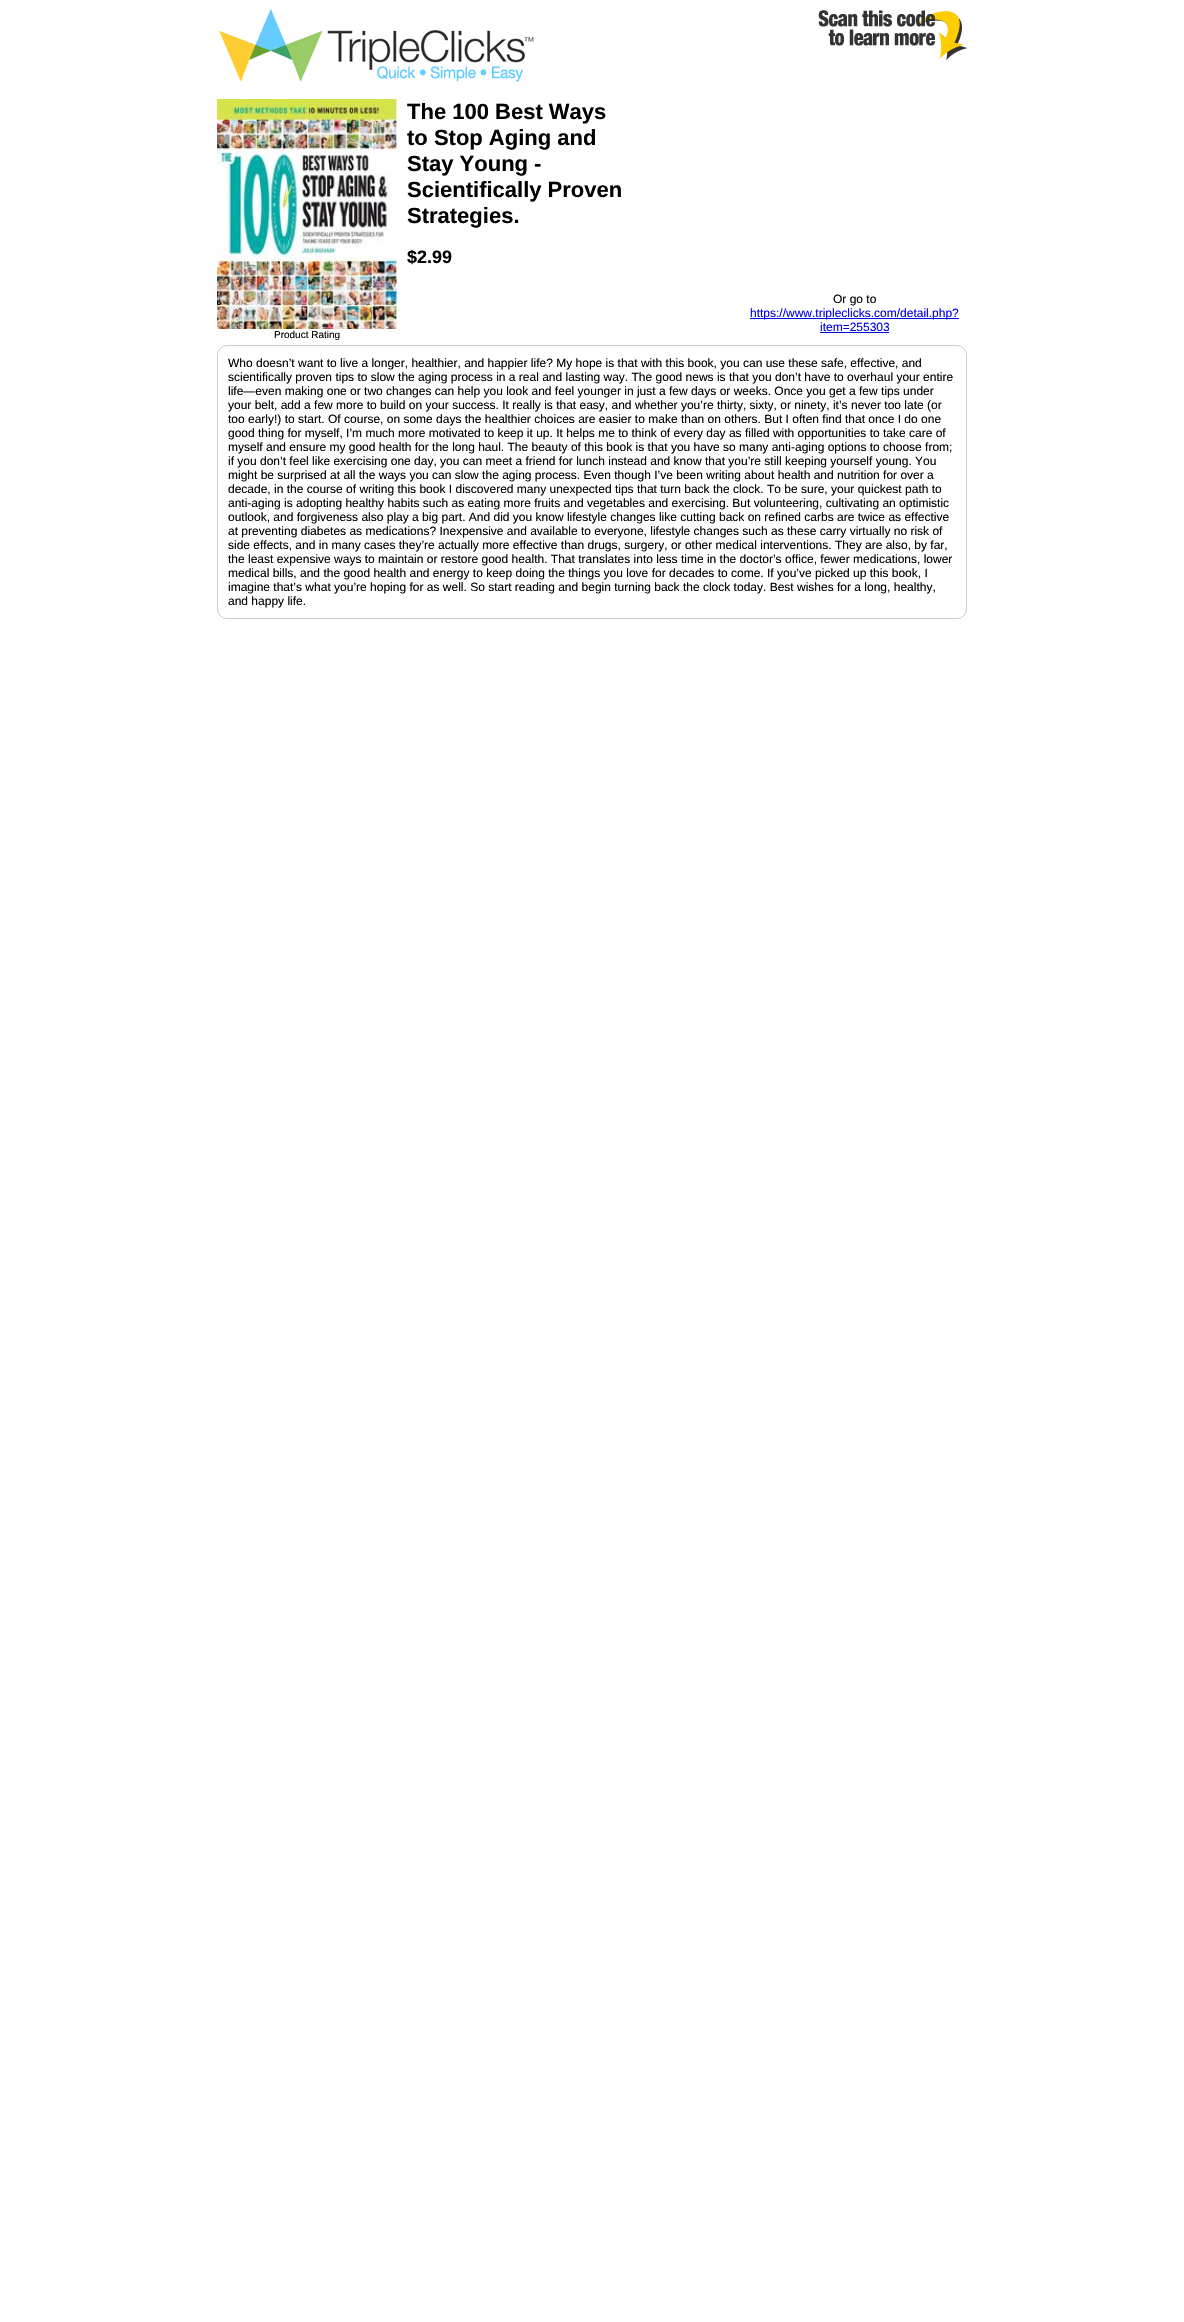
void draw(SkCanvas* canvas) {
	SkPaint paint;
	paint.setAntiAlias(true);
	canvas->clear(0xffffffff);
	canvas->drawImageRect(SkImages::DeferredFromEncodedData(SkData::MakeFromFileName("img1.png")), SkRect::MakeXYWH(219, 9, 315, 73), SkSamplingOptions());
	SkFont f1(fontMgr->matchFamilyStyle("Liberation Sans", SkFontStyle::Bold()), 22);
	f1.setSubpixel(true);
	paint.setColor(0xff000000);
	canvas->drawString("The 100 Best Ways", 407, 119, f1, paint);
	canvas->drawString("to Stop Aging and", 407, 145, f1, paint);
	canvas->drawString("Stay Young -", 407, 171, f1, paint);
	canvas->drawString("Scientifically Proven", 407, 197, f1, paint);
	canvas->drawString("Strategies.", 407, 223, f1, paint);
	SkFont f2(fontMgr->matchFamilyStyle("Liberation Sans", SkFontStyle::Bold()), 18);
	f2.setSubpixel(true);
	canvas->drawString("$2.99", 407, 263, f2, paint);
	canvas->drawImageRect(SkImages::DeferredFromEncodedData(SkData::MakeFromFileName("img2.png")), SkRect::MakeXYWH(818, 10, 149, 50), SkSamplingOptions());
	SkFont f3(fontMgr->matchFamilyStyle("Liberation Sans", SkFontStyle::Normal()), 12);
	f3.setSubpixel(true);
	canvas->drawString("Or go to", 833, 303, f3, paint);
	paint.setColor(0xff0000ee);
	canvas->drawRect(SkRect::MakeXYWH(750, 318, 209, 1), paint);
	canvas->drawString("https://www.tripleclicks.com/detail.php?", 750, 317, f3, paint);
	canvas->drawString("item=255303", 820, 331, f3, paint);
	canvas->drawRect(SkRect::MakeXYWH(820, 332, 69, 1), paint);
	canvas->drawImageRect(SkImages::DeferredFromEncodedData(SkData::MakeFromFileName("img3.png")), SkRect::MakeXYWH(217, 99, 180, 230), SkSamplingOptions());
	SkFont f4(fontMgr->matchFamilyStyle("Liberation Sans", SkFontStyle::Normal()), 10);
	f4.setSubpixel(true);
	paint.setColor(0xff000000);
	canvas->drawString("Product Rating", 274, 338, f4, paint);
	paint.setStroke(true);
	paint.setStrokeWidth(1);
	paint.setColor(0xffcccccc);
	canvas->drawRoundRect(SkRect::MakeXYWH(217.5, 345.5, 749, 273), 9.5, 9.5, paint);
	paint.setStroke(false);
	paint.setColor(0xff000000);
	canvas->drawString("Who doesn’t want to live a longer, healthier, and happier life? My hope is that with this book, you can use these safe, effective, and", 228, 367, f3, paint);
	canvas->drawString("scientifically proven tips to slow the aging process in a real and lasting way. The good news is that you don’t have to overhaul your entire", 228, 381, f3, paint);
	canvas->drawString("life—even making one or two changes can help you look and feel younger in just a few days or weeks. Once you get a few tips under", 228, 395, f3, paint);
	canvas->drawString("your belt, add a few more to build on your success. It really is that easy, and whether you’re thirty, sixty, or ninety, it’s never too late (or", 228, 409, f3, paint);
	canvas->drawString("too early!) to start. Of course, on some days the healthier choices are easier to make than on others. But I often find that once I do one", 228, 423, f3, paint);
	canvas->drawString("good thing for myself, I’m much more motivated to keep it up. It helps me to think of every day as filled with opportunities to take care of", 228, 437, f3, paint);
	canvas->drawString("myself and ensure my good health for the long haul. The beauty of this book is that you have so many anti-aging options to choose from;", 228, 451, f3, paint);
	canvas->drawString("if you don’t feel like exercising one day, you can meet a friend for lunch instead and know that you’re still keeping yourself young. You", 228, 465, f3, paint);
	canvas->drawString("might be surprised at all the ways you can slow the aging process. Even though I’ve been writing about health and nutrition for over a", 228, 479, f3, paint);
	canvas->drawString("decade, in the course of writing this book I discovered many unexpected tips that turn back the clock. To be sure, your quickest path to", 228, 493, f3, paint);
	canvas->drawString("anti-aging is adopting healthy habits such as eating more fruits and vegetables and exercising. But volunteering, cultivating an optimistic", 228, 507, f3, paint);
	canvas->drawString("outlook, and forgiveness also play a big part. And did you know lifestyle changes like cutting back on refined carbs are twice as effective", 228, 521, f3, paint);
	canvas->drawString("at preventing diabetes as medications? Inexpensive and available to everyone, lifestyle changes such as these carry virtually no risk of", 228, 535, f3, paint);
	canvas->drawString("side effects, and in many cases they’re actually more effective than drugs, surgery, or other medical interventions. They are also, by far,", 228, 549, f3, paint);
	canvas->drawString("the least expensive ways to maintain or restore good health. That translates into less time in the doctor’s office, fewer medications, lower", 228, 563, f3, paint);
	canvas->drawString("medical bills, and the good health and energy to keep doing the things you love for decades to come. If you’ve picked up this book, I", 228, 577, f3, paint);
	canvas->drawString("imagine that’s what you’re hoping for as well. So start reading and begin turning back the clock today. Best wishes for a long, healthy,", 228, 591, f3, paint);
	canvas->drawString("and happy life.", 228, 605, f3, paint);
}
